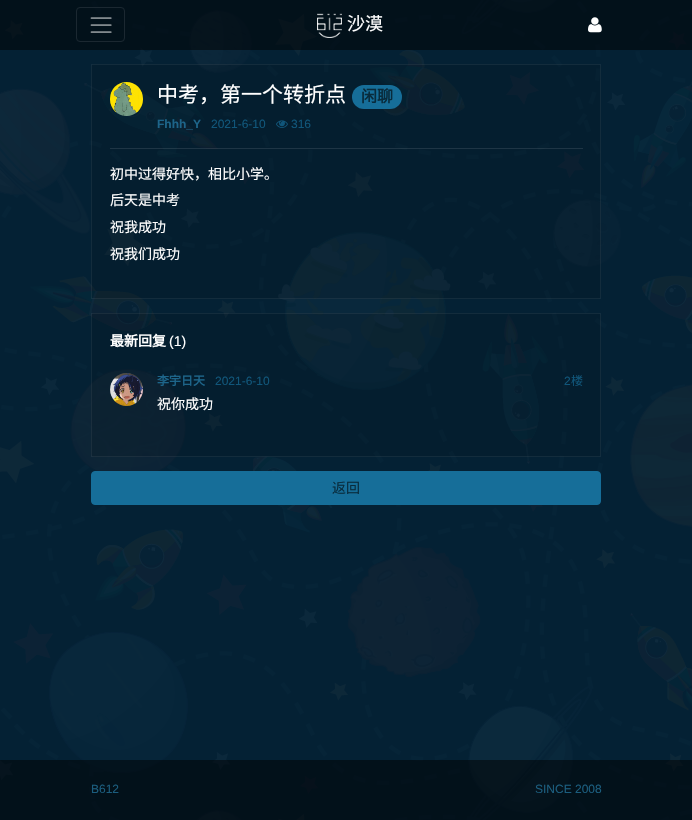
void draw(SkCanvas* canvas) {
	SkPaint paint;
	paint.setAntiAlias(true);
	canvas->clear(0xffffffff);
	canvas->drawImageRect(SkImages::DeferredFromEncodedData(SkData::MakeFromFileName("img1.png")), SkRect::MakeXYWH(0, 0, 692, 820), SkSamplingOptions());
	paint.setColor(0x80000000);
	canvas->drawRect(SkRect::MakeXYWH(0, 0, 692, 50), paint);
	paint.setStroke(true);
	paint.setStrokeWidth(1);
	paint.setColor(0xff1b2831);
	canvas->drawRoundRect(SkRect::MakeXYWH(76.5, 7.5, 48, 34), 3.5, 3.5, paint);
	canvas->drawImageRect(SkImages::DeferredFromEncodedData(SkData::MakeFromFileName("img2.png")), SkRect::MakeXYWH(90, 17, 22, 16), SkSamplingOptions());
	canvas->drawImageRect(SkImages::DeferredFromEncodedData(SkData::MakeFromFileName("img3.png")), SkRect::MakeXYWH(317, 13, 25, 25), SkSamplingOptions());
	SkFont f1(fontMgr->matchFamilyStyle("Noto Sans CJK SC", SkFontStyle::Normal()), 18);
	f1.setSubpixel(true);
	paint.setStroke(false);
	paint.setColor(0xffffffff);
	canvas->drawString("沙漠", 347, 30, f1, paint);
	canvas->drawImageRect(SkImages::DeferredFromEncodedData(SkData::MakeFromFileName("img4.png")), SkRect::MakeXYWH(588, 17, 14, 16), SkSamplingOptions());
	paint.setColor(0x1a000000);
	canvas->drawRoundRect(SkRect::MakeXYWH(91, 64, 510, 235), 4, 4, paint);
	paint.setStroke(true);
	paint.setColor(0x0fffffff);
	canvas->drawRect(SkRect::MakeXYWH(91.5, 64.5, 509, 234), paint);
	canvas->drawImageRect(SkImages::DeferredFromEncodedData(SkData::MakeFromFileName("img5.png")), SkRect::MakeXYWH(110, 82, 33, 34), SkSamplingOptions());
	SkFont f2(fontMgr->matchFamilyStyle("Noto Sans CJK SC", SkFontStyle::Normal()), 21);
	f2.setSubpixel(true);
	paint.setStroke(false);
	paint.setColor(0xffffffff);
	canvas->drawString("中考，第一个转折点", 157, 102, f2, paint);
	paint.setColor(0xff166e99);
	canvas->drawRoundRect(SkRect::MakeXYWH(352, 85, 50, 24), 12, 12, paint);
	SkFont f3(fontMgr->matchFamilyStyle("Noto Sans CJK SC", SkFontStyle::Bold()), 16);
	f3.setSubpixel(true);
	paint.setColor(0xff082b3c);
	canvas->drawString("闲聊", 361, 102, f3, paint);
	SkFont f4(fontMgr->matchFamilyStyle("Liberation Sans", SkFontStyle::Bold()), 12);
	f4.setSubpixel(true);
	paint.setColor(0xff1d658a);
	canvas->drawString("Fhhh_Y", 157, 128, f4, paint);
	SkFont f5(fontMgr->matchFamilyStyle("Liberation Sans", SkFontStyle::Normal()), 12);
	f5.setSubpixel(true);
	paint.setColor(0xff10567a);
	canvas->drawString("2021-6-10", 211, 128, f5, paint);
	canvas->drawImageRect(SkImages::DeferredFromEncodedData(SkData::MakeFromFileName("img6.png")), SkRect::MakeXYWH(276, 120, 12, 8), SkSamplingOptions());
	canvas->drawString("316", 291, 128, f5, paint);
	paint.setColor(0x1affffff);
	canvas->drawRect(SkRect::MakeXYWH(110, 148, 473, 1), paint);
	SkFont f6(fontMgr->matchFamilyStyle("Noto Sans CJK SC", SkFontStyle::Normal()), 14);
	f6.setSubpixel(true);
	paint.setColor(0xffffffff);
	canvas->drawString("初中过得好快，相比小学。", 110, 179, f6, paint);
	canvas->drawString("后天是中考", 110, 205, f6, paint);
	canvas->drawString("祝我成功", 110, 232, f6, paint);
	canvas->drawString("祝我们成功", 110, 259, f6, paint);
	paint.setColor(0x1a000000);
	canvas->drawRoundRect(SkRect::MakeXYWH(91, 313, 510, 144), 4, 4, paint);
	paint.setStroke(true);
	paint.setColor(0x0fffffff);
	canvas->drawRect(SkRect::MakeXYWH(91.5, 313.5, 509, 143), paint);
	SkFont f7(fontMgr->matchFamilyStyle("Noto Sans CJK SC", SkFontStyle::Bold()), 14);
	f7.setSubpixel(true);
	paint.setStroke(false);
	paint.setColor(0xffffffff);
	canvas->drawString("最新回复", 110, 346, f7, paint);
	SkFont f8(fontMgr->matchFamilyStyle("Liberation Sans", SkFontStyle::Normal()), 14);
	f8.setSubpixel(true);
	canvas->drawString("(1)", 169, 346, f8, paint);
	canvas->drawImageRect(SkImages::DeferredFromEncodedData(SkData::MakeFromFileName("img7.png")), SkRect::MakeXYWH(110, 373, 33, 33), SkSamplingOptions());
	SkFont f9(fontMgr->matchFamilyStyle("Noto Sans CJK SC", SkFontStyle::Bold()), 12);
	f9.setSubpixel(true);
	paint.setColor(0xff1d658a);
	canvas->drawString("李宇日天", 157, 385, f9, paint);
	paint.setColor(0xff10567a);
	canvas->drawString("2021-6-10", 215, 385, f5, paint);
	canvas->drawString("2", 564, 385, f5, paint);
	SkFont f10(fontMgr->matchFamilyStyle("Noto Sans CJK SC", SkFontStyle::Normal()), 12);
	f10.setSubpixel(true);
	canvas->drawString("楼", 571, 385, f10, paint);
	paint.setColor(0xffffffff);
	canvas->drawString("祝你成功", 157, 409, f6, paint);
	paint.setColor(0xff166e99);
	canvas->drawRoundRect(SkRect::MakeXYWH(91.5, 471.5, 509, 33), 3.5, 3.5, paint);
	paint.setStroke(true);
	canvas->drawRoundRect(SkRect::MakeXYWH(91.5, 471.5, 509, 33), 3.5, 3.5, paint);
	paint.setStroke(false);
	paint.setColor(0xff082b3c);
	canvas->drawString("返回", 332, 493, f6, paint);
	paint.setColor(0x80000000);
	canvas->drawRect(SkRect::MakeXYWH(0, 760, 692, 60), paint);
	paint.setColor(0xff1b5d7e);
	canvas->drawString("B612", 91, 793, f5, paint);
	canvas->drawString("SINCE 2008", 535, 793, f5, paint);
}
